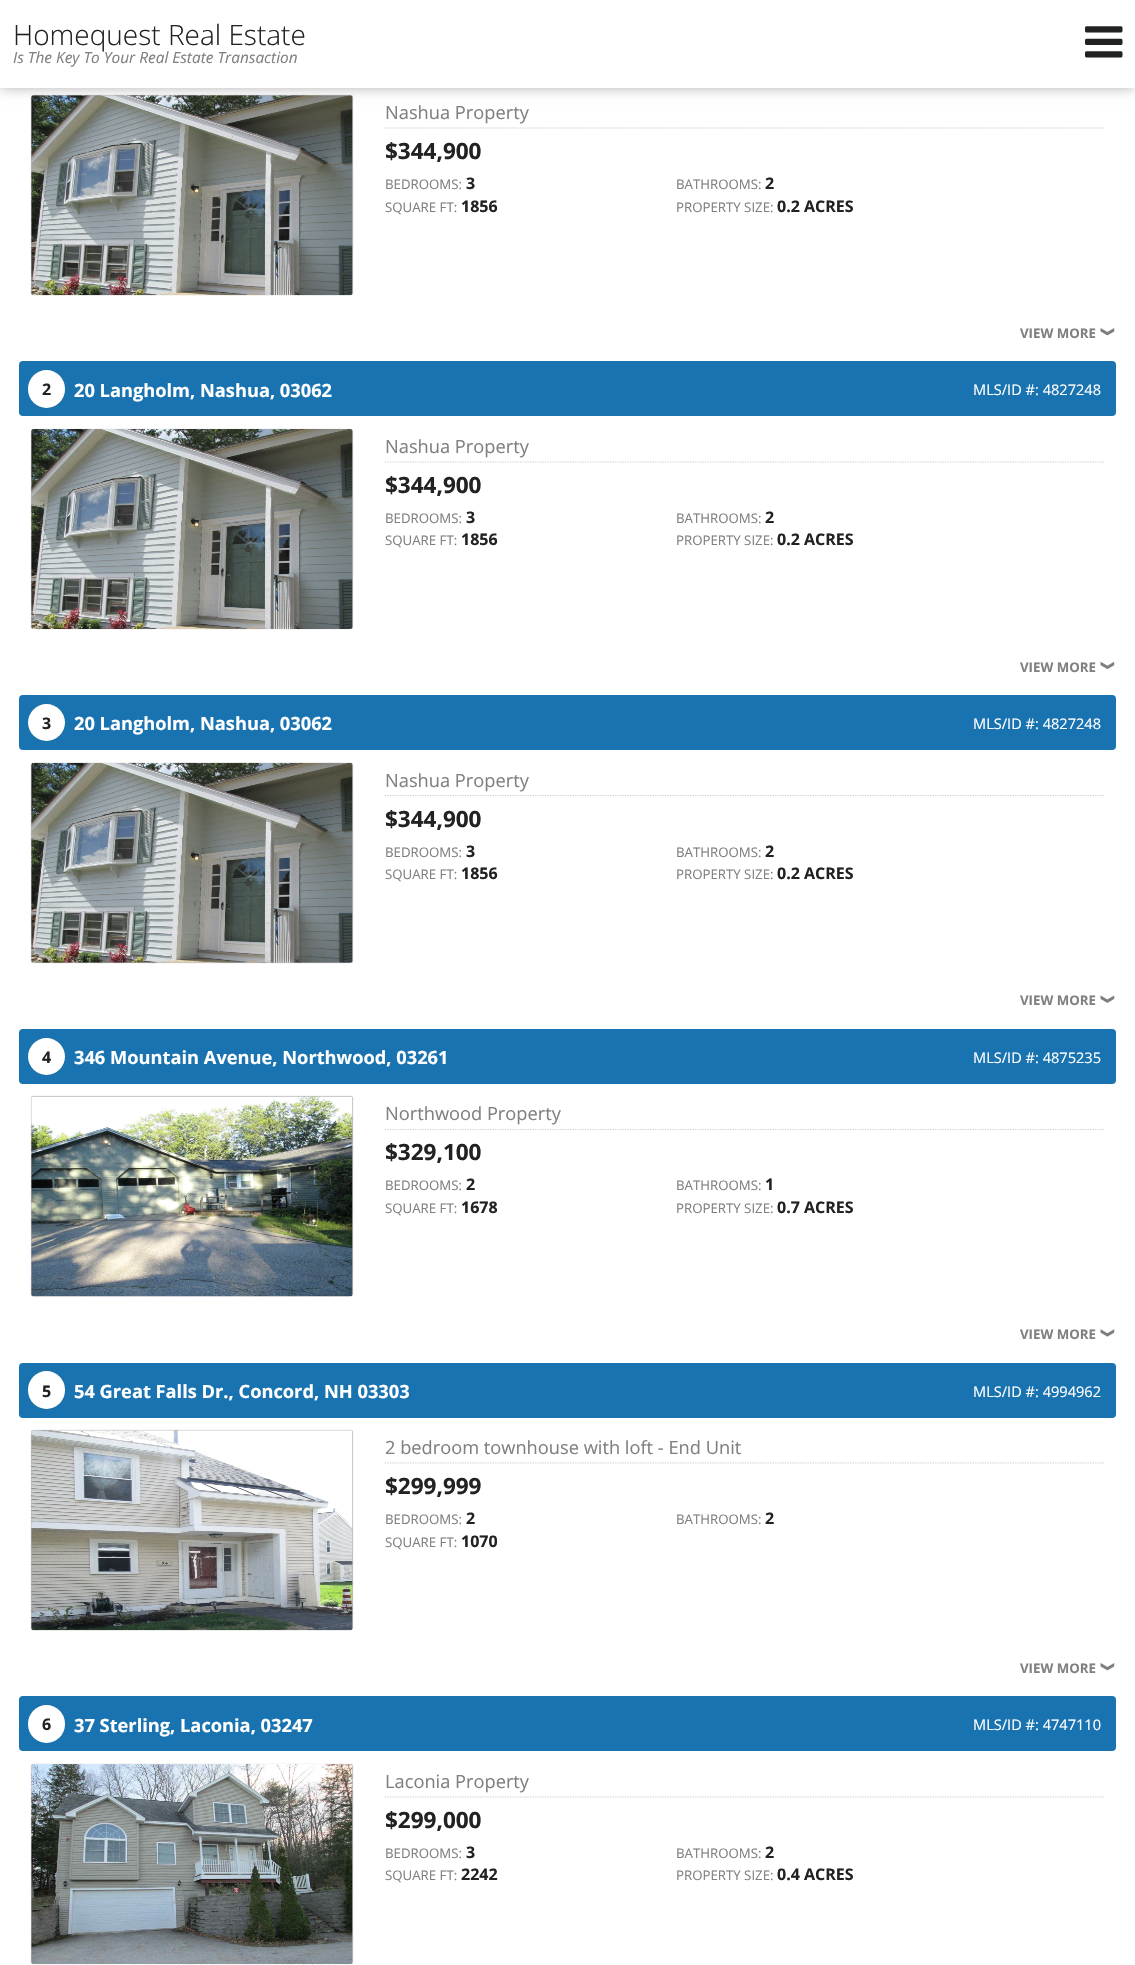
void draw(SkCanvas* canvas) {
	SkPaint paint;
	paint.setAntiAlias(true);
	auto svgPath = [&](const char* data, bool evenOdd = false) {
		SkPath result = *SkParsePath::FromSVGString(data);
		if (evenOdd) result.setFillType(SkPathFillType::kEvenOdd);
		return result;
	};
	canvas->clear(0xffffffff);
	paint.setColor(0x4d000000);
	paint.setMaskFilter(SkMaskFilter::MakeBlur(kNormal_SkBlurStyle, 0.5));
	canvas->drawRoundRect(SkRect::MakeXYWH(31, 95, 322, 200), 2.5, 2.5, paint);
	paint.setMaskFilter(nullptr);
	canvas->drawImageRect(SkImages::DeferredFromEncodedData(SkData::MakeFromFileName("img2.png")), SkRect::MakeXYWH(31, 95, 322, 201), SkSamplingOptions());
	paint.setMaskFilter(SkMaskFilter::MakeBlur(kNormal_SkBlurStyle, 6));
	canvas->drawRect(SkRect::MakeXYWH(0, 0, 1135, 88), paint);
	paint.setMaskFilter(nullptr);
	paint.setColor(0xffffffff);
	canvas->drawRect(SkRect::MakeXYWH(0, 0, 1135, 88), paint);
	SkFont f1(fontMgr->matchFamilyStyle("Open Sans", SkFontStyle(300, SkFontStyle::kNormal_Width, SkFontStyle::kUpright_Slant)), 28);
	f1.setSubpixel(true);
	paint.setColor(0xff222222);
	canvas->drawString("Homequest Real Estate", 13, 45, f1, paint);
	SkFont f2(fontMgr->matchFamilyStyle("Open Sans", SkFontStyle::Italic()), 15.4);
	f2.setSubpixel(true);
	paint.setColor(0xff808080);
	canvas->drawString("Is The Key To Your Real Estate Transaction", 13, 63, f2, paint);
	canvas->drawImageRect(SkImages::DeferredFromEncodedData(SkData::MakeFromFileName("img1.png")), SkRect::MakeXYWH(1085, 26, 38, 32), SkSamplingOptions());
	paint.setStroke(true);
	paint.setStrokeWidth(1.2);
	paint.setColor(0xffcccccc);
	paint.setPathEffect(SkDashPathEffect::Make({{1.25f, 1.25f}}, 0));
	canvas->drawPath(svgPath("M385 128H1104"), paint);
	paint.setPathEffect(nullptr);
	SkFont f3(fontMgr->matchFamilyStyle("Open Sans", SkFontStyle::Normal()), 18.25);
	f3.setSubpixel(true);
	paint.setStroke(false);
	paint.setColor(0xff808080);
	canvas->drawString("Nashua Property", 385, 119, f3, paint);
	SkFont f4(fontMgr->matchFamilyStyle("Open Sans", SkFontStyle::Bold()), 22.5);
	f4.setSubpixel(true);
	paint.setColor(0xff222222);
	canvas->drawString("$344,900", 385, 159, f4, paint);
	SkFont f5(fontMgr->matchFamilyStyle("Open Sans", SkFontStyle::Normal()), 13.25);
	f5.setSubpixel(true);
	paint.setColor(0xff808080);
	canvas->drawString("BEDROOMS:", 385, 189, f5, paint);
	SkFont f6(fontMgr->matchFamilyStyle("Open Sans", SkFontStyle::Bold()), 16);
	f6.setSubpixel(true);
	paint.setColor(0xff222222);
	canvas->drawString("3", 466, 189, f6, paint);
	paint.setColor(0xff808080);
	canvas->drawString("BATHROOMS:", 676, 189, f5, paint);
	paint.setColor(0xff222222);
	canvas->drawString("2", 765, 189, f6, paint);
	paint.setColor(0xff808080);
	canvas->drawString("SQUARE FT:", 385, 212, f5, paint);
	paint.setColor(0xff222222);
	canvas->drawString("1856", 461, 212, f6, paint);
	paint.setColor(0xff808080);
	canvas->drawString("PROPERTY SIZE:", 676, 212, f5, paint);
	paint.setColor(0xff222222);
	canvas->drawString("0.2 ACRES", 777, 212, f6, paint);
	SkFont f7(fontMgr->matchFamilyStyle("Open Sans", SkFontStyle::Bold()), 13.25);
	f7.setSubpixel(true);
	paint.setColor(0xff808080);
	canvas->drawString("VIEW MORE", 1020, 338, f7, paint);
	canvas->drawImageRect(SkImages::DeferredFromEncodedData(SkData::MakeFromFileName("img3.png")), SkRect::MakeXYWH(1100, 328, 15, 8), SkSamplingOptions());
	paint.setColor(0xff1973b0);
	canvas->drawRoundRect(SkRect::MakeXYWH(19, 361, 1097, 55), 4, 4, paint);
	paint.setColor(0x33000000);
	paint.setMaskFilter(SkMaskFilter::MakeBlur(kNormal_SkBlurStyle, 0.5));
	canvas->drawRoundRect(SkRect::MakeXYWH(28, 370, 37, 38), 18.5, 18.5, paint);
	paint.setMaskFilter(nullptr);
	paint.setColor(0xffffffff);
	canvas->drawRoundRect(SkRect::MakeXYWH(28, 370, 37, 38), 18.5, 18.5, paint);
	paint.setColor(0xff222222);
	canvas->drawString("2", 42, 395, f6, paint);
	SkFont f8(fontMgr->matchFamilyStyle("Open Sans", SkFontStyle::Bold()), 18.25);
	f8.setSubpixel(true);
	paint.setColor(0xffffffff);
	canvas->drawString("20 Langholm, Nashua, 03062", 74, 397, f8, paint);
	SkFont f9(fontMgr->matchFamilyStyle("Open Sans", SkFontStyle::Normal()), 14.6);
	f9.setSubpixel(true);
	canvas->drawString("MLS/ID #: 4827248", 973, 395, f9, paint);
	paint.setColor(0x4d000000);
	paint.setMaskFilter(SkMaskFilter::MakeBlur(kNormal_SkBlurStyle, 0.5));
	canvas->drawRoundRect(SkRect::MakeXYWH(31, 429, 322, 200), 2.5, 2.5, paint);
	paint.setMaskFilter(nullptr);
	canvas->drawImageRect(SkImages::DeferredFromEncodedData(SkData::MakeFromFileName("img4.png")), SkRect::MakeXYWH(31, 429, 322, 200), SkSamplingOptions());
	paint.setStroke(true);
	paint.setColor(0xffcccccc);
	paint.setPathEffect(SkDashPathEffect::Make({{1.25f, 1.25f}}, 0));
	canvas->drawPath(svgPath("M385 462H1104"), paint);
	paint.setPathEffect(nullptr);
	paint.setStroke(false);
	paint.setColor(0xff808080);
	canvas->drawString("Nashua Property", 385, 453, f3, paint);
	paint.setColor(0xff222222);
	canvas->drawString("$344,900", 385, 493, f4, paint);
	paint.setColor(0xff808080);
	canvas->drawString("BEDROOMS:", 385, 523, f5, paint);
	paint.setColor(0xff222222);
	canvas->drawString("3", 466, 523, f6, paint);
	paint.setColor(0xff808080);
	canvas->drawString("BATHROOMS:", 676, 523, f5, paint);
	paint.setColor(0xff222222);
	canvas->drawString("2", 765, 523, f6, paint);
	paint.setColor(0xff808080);
	canvas->drawString("SQUARE FT:", 385, 545, f5, paint);
	paint.setColor(0xff222222);
	canvas->drawString("1856", 461, 545, f6, paint);
	paint.setColor(0xff808080);
	canvas->drawString("PROPERTY SIZE:", 676, 545, f5, paint);
	paint.setColor(0xff222222);
	canvas->drawString("0.2 ACRES", 777, 545, f6, paint);
	paint.setColor(0xff808080);
	canvas->drawString("VIEW MORE", 1020, 672, f7, paint);
	canvas->drawImageRect(SkImages::DeferredFromEncodedData(SkData::MakeFromFileName("img5.png")), SkRect::MakeXYWH(1100, 661, 15, 9), SkSamplingOptions());
	paint.setColor(0xff1973b0);
	canvas->drawRoundRect(SkRect::MakeXYWH(19, 695, 1097, 55), 4, 4, paint);
	paint.setColor(0x33000000);
	paint.setMaskFilter(SkMaskFilter::MakeBlur(kNormal_SkBlurStyle, 0.5));
	canvas->drawRoundRect(SkRect::MakeXYWH(28, 704, 37, 37), 18.5, 18.5, paint);
	paint.setMaskFilter(nullptr);
	paint.setColor(0xffffffff);
	canvas->drawCircle(46.5, 722.5, 18.5, paint);
	paint.setColor(0xff222222);
	canvas->drawString("3", 42, 729, f6, paint);
	paint.setColor(0xffffffff);
	canvas->drawString("20 Langholm, Nashua, 03062", 74, 730, f8, paint);
	canvas->drawString("MLS/ID #: 4827248", 973, 729, f9, paint);
	paint.setColor(0x4d000000);
	paint.setMaskFilter(SkMaskFilter::MakeBlur(kNormal_SkBlurStyle, 0.5));
	canvas->drawRoundRect(SkRect::MakeXYWH(31, 763, 322, 200), 2.5, 2.5, paint);
	paint.setMaskFilter(nullptr);
	canvas->drawImageRect(SkImages::DeferredFromEncodedData(SkData::MakeFromFileName("img6.png")), SkRect::MakeXYWH(31, 762, 322, 201), SkSamplingOptions());
	paint.setStroke(true);
	paint.setColor(0xffcccccc);
	paint.setPathEffect(SkDashPathEffect::Make({{1.25f, 1.25f}}, 0));
	canvas->drawPath(svgPath("M385 795.5H1104"), paint);
	paint.setPathEffect(nullptr);
	paint.setStroke(false);
	paint.setColor(0xff808080);
	canvas->drawString("Nashua Property", 385, 787, f3, paint);
	paint.setColor(0xff222222);
	canvas->drawString("$344,900", 385, 827, f4, paint);
	paint.setColor(0xff808080);
	canvas->drawString("BEDROOMS:", 385, 857, f5, paint);
	paint.setColor(0xff222222);
	canvas->drawString("3", 466, 857, f6, paint);
	paint.setColor(0xff808080);
	canvas->drawString("BATHROOMS:", 676, 857, f5, paint);
	paint.setColor(0xff222222);
	canvas->drawString("2", 765, 857, f6, paint);
	paint.setColor(0xff808080);
	canvas->drawString("SQUARE FT:", 385, 879, f5, paint);
	paint.setColor(0xff222222);
	canvas->drawString("1856", 461, 879, f6, paint);
	paint.setColor(0xff808080);
	canvas->drawString("PROPERTY SIZE:", 676, 879, f5, paint);
	paint.setColor(0xff222222);
	canvas->drawString("0.2 ACRES", 777, 879, f6, paint);
	paint.setColor(0xff808080);
	canvas->drawString("VIEW MORE", 1020, 1005, f7, paint);
	canvas->drawImageRect(SkImages::DeferredFromEncodedData(SkData::MakeFromFileName("img7.png")), SkRect::MakeXYWH(1100, 995, 15, 8), SkSamplingOptions());
	paint.setColor(0xff1973b0);
	canvas->drawRoundRect(SkRect::MakeXYWH(19, 1029, 1097, 55), 4, 4, paint);
	paint.setColor(0x33000000);
	paint.setMaskFilter(SkMaskFilter::MakeBlur(kNormal_SkBlurStyle, 0.5));
	canvas->drawRoundRect(SkRect::MakeXYWH(28, 1038, 37, 37), 18.5, 18.5, paint);
	paint.setMaskFilter(nullptr);
	paint.setColor(0xffffffff);
	canvas->drawCircle(46.5, 1056.5, 18.5, paint);
	paint.setColor(0xff222222);
	canvas->drawString("4", 42, 1063, f6, paint);
	paint.setColor(0xffffffff);
	canvas->drawString("346 Mountain Avenue, Northwood, 03261", 74, 1064, f8, paint);
	canvas->drawString("MLS/ID #: 4875235", 973, 1063, f9, paint);
	paint.setColor(0x4d000000);
	paint.setMaskFilter(SkMaskFilter::MakeBlur(kNormal_SkBlurStyle, 0.5));
	canvas->drawRoundRect(SkRect::MakeXYWH(31, 1096, 322, 200), 2.5, 2.5, paint);
	paint.setMaskFilter(nullptr);
	canvas->drawImageRect(SkImages::DeferredFromEncodedData(SkData::MakeFromFileName("img8.png")), SkRect::MakeXYWH(31, 1096, 322, 201), SkSamplingOptions());
	paint.setStroke(true);
	paint.setColor(0xffcccccc);
	paint.setPathEffect(SkDashPathEffect::Make({{1.25f, 1.25f}}, 0));
	canvas->drawPath(svgPath("M385 1129.5H1104"), paint);
	paint.setPathEffect(nullptr);
	paint.setStroke(false);
	paint.setColor(0xff808080);
	canvas->drawString("Northwood Property", 385, 1120, f3, paint);
	paint.setColor(0xff222222);
	canvas->drawString("$329,100", 385, 1160, f4, paint);
	paint.setColor(0xff808080);
	canvas->drawString("BEDROOMS:", 385, 1190, f5, paint);
	paint.setColor(0xff222222);
	canvas->drawString("2", 466, 1190, f6, paint);
	paint.setColor(0xff808080);
	canvas->drawString("BATHROOMS:", 676, 1190, f5, paint);
	paint.setColor(0xff222222);
	canvas->drawString("1", 765, 1190, f6, paint);
	paint.setColor(0xff808080);
	canvas->drawString("SQUARE FT:", 385, 1213, f5, paint);
	paint.setColor(0xff222222);
	canvas->drawString("1678", 461, 1213, f6, paint);
	paint.setColor(0xff808080);
	canvas->drawString("PROPERTY SIZE:", 676, 1213, f5, paint);
	paint.setColor(0xff222222);
	canvas->drawString("0.7 ACRES", 777, 1213, f6, paint);
	paint.setColor(0xff808080);
	canvas->drawString("VIEW MORE", 1020, 1339, f7, paint);
	canvas->drawImageRect(SkImages::DeferredFromEncodedData(SkData::MakeFromFileName("img9.png")), SkRect::MakeXYWH(1100, 1329, 15, 8), SkSamplingOptions());
	paint.setColor(0xff1973b0);
	canvas->drawRoundRect(SkRect::MakeXYWH(19, 1363, 1097, 55), 4, 4, paint);
	paint.setColor(0x33000000);
	paint.setMaskFilter(SkMaskFilter::MakeBlur(kNormal_SkBlurStyle, 0.5));
	canvas->drawRoundRect(SkRect::MakeXYWH(28, 1371, 37, 38), 18.5, 18.5, paint);
	paint.setMaskFilter(nullptr);
	paint.setColor(0xffffffff);
	canvas->drawRoundRect(SkRect::MakeXYWH(28, 1371, 37, 38), 18.5, 18.5, paint);
	paint.setColor(0xff222222);
	canvas->drawString("5", 42, 1397, f6, paint);
	paint.setColor(0xffffffff);
	canvas->drawString("54 Great Falls Dr., Concord, NH 03303", 74, 1398, f8, paint);
	canvas->drawString("MLS/ID #: 4994962", 973, 1397, f9, paint);
	paint.setColor(0x4d000000);
	paint.setMaskFilter(SkMaskFilter::MakeBlur(kNormal_SkBlurStyle, 0.5));
	canvas->drawRoundRect(SkRect::MakeXYWH(31, 1430, 322, 200), 2.5, 2.5, paint);
	paint.setMaskFilter(nullptr);
	canvas->drawImageRect(SkImages::DeferredFromEncodedData(SkData::MakeFromFileName("img10.png")), SkRect::MakeXYWH(31, 1430, 322, 201), SkSamplingOptions());
	paint.setStroke(true);
	paint.setColor(0xffcccccc);
	paint.setPathEffect(SkDashPathEffect::Make({{1.25f, 1.25f}}, 0));
	canvas->drawPath(svgPath("M385 1463H1104"), paint);
	paint.setPathEffect(nullptr);
	paint.setStroke(false);
	paint.setColor(0xff808080);
	canvas->drawString("2 bedroom townhouse with loft - End Unit", 385, 1454, f3, paint);
	paint.setColor(0xff222222);
	canvas->drawString("$299,999", 385, 1494, f4, paint);
	paint.setColor(0xff808080);
	canvas->drawString("BEDROOMS:", 385, 1524, f5, paint);
	paint.setColor(0xff222222);
	canvas->drawString("2", 466, 1524, f6, paint);
	paint.setColor(0xff808080);
	canvas->drawString("BATHROOMS:", 676, 1524, f5, paint);
	paint.setColor(0xff222222);
	canvas->drawString("2", 765, 1524, f6, paint);
	paint.setColor(0xff808080);
	canvas->drawString("SQUARE FT:", 385, 1547, f5, paint);
	paint.setColor(0xff222222);
	canvas->drawString("1070", 461, 1547, f6, paint);
	paint.setColor(0xff808080);
	canvas->drawString("VIEW MORE", 1020, 1673, f7, paint);
	canvas->drawImageRect(SkImages::DeferredFromEncodedData(SkData::MakeFromFileName("img3.png")), SkRect::MakeXYWH(1100, 1663, 15, 8), SkSamplingOptions());
	paint.setColor(0xff1973b0);
	canvas->drawRoundRect(SkRect::MakeXYWH(19, 1696, 1097, 55), 4, 4, paint);
	paint.setColor(0x33000000);
	paint.setMaskFilter(SkMaskFilter::MakeBlur(kNormal_SkBlurStyle, 0.5));
	canvas->drawRoundRect(SkRect::MakeXYWH(28, 1705, 37, 38), 18.5, 18.5, paint);
	paint.setMaskFilter(nullptr);
	paint.setColor(0xffffffff);
	canvas->drawRoundRect(SkRect::MakeXYWH(28, 1705, 37, 38), 18.5, 18.5, paint);
	paint.setColor(0xff222222);
	canvas->drawString("6", 42, 1730, f6, paint);
	paint.setColor(0xffffffff);
	canvas->drawString("37 Sterling, Laconia, 03247", 74, 1732, f8, paint);
	canvas->drawString("MLS/ID #: 4747110", 973, 1730, f9, paint);
	paint.setColor(0x4d000000);
	paint.setMaskFilter(SkMaskFilter::MakeBlur(kNormal_SkBlurStyle, 0.5));
	canvas->drawRoundRect(SkRect::MakeXYWH(31, 1764, 322, 200), 2.5, 2.5, paint);
	paint.setMaskFilter(nullptr);
	canvas->drawImageRect(SkImages::DeferredFromEncodedData(SkData::MakeFromFileName("img11.png")), SkRect::MakeXYWH(31, 1764, 322, 200), SkSamplingOptions());
	paint.setStroke(true);
	paint.setColor(0xffcccccc);
	paint.setPathEffect(SkDashPathEffect::Make({{1.25f, 1.25f}}, 0));
	canvas->drawPath(svgPath("M385 1797H1104"), paint);
	paint.setPathEffect(nullptr);
	paint.setStroke(false);
	paint.setColor(0xff808080);
	canvas->drawString("Laconia Property", 385, 1788, f3, paint);
	paint.setColor(0xff222222);
	canvas->drawString("$299,000", 385, 1828, f4, paint);
	paint.setColor(0xff808080);
	canvas->drawString("BEDROOMS:", 385, 1858, f5, paint);
	paint.setColor(0xff222222);
	canvas->drawString("3", 466, 1858, f6, paint);
	paint.setColor(0xff808080);
	canvas->drawString("BATHROOMS:", 676, 1858, f5, paint);
	paint.setColor(0xff222222);
	canvas->drawString("2", 765, 1858, f6, paint);
	paint.setColor(0xff808080);
	canvas->drawString("SQUARE FT:", 385, 1880, f5, paint);
	paint.setColor(0xff222222);
	canvas->drawString("2242", 461, 1880, f6, paint);
	paint.setColor(0xff808080);
	canvas->drawString("PROPERTY SIZE:", 676, 1880, f5, paint);
	paint.setColor(0xff222222);
	canvas->drawString("0.4 ACRES", 777, 1880, f6, paint);
}
